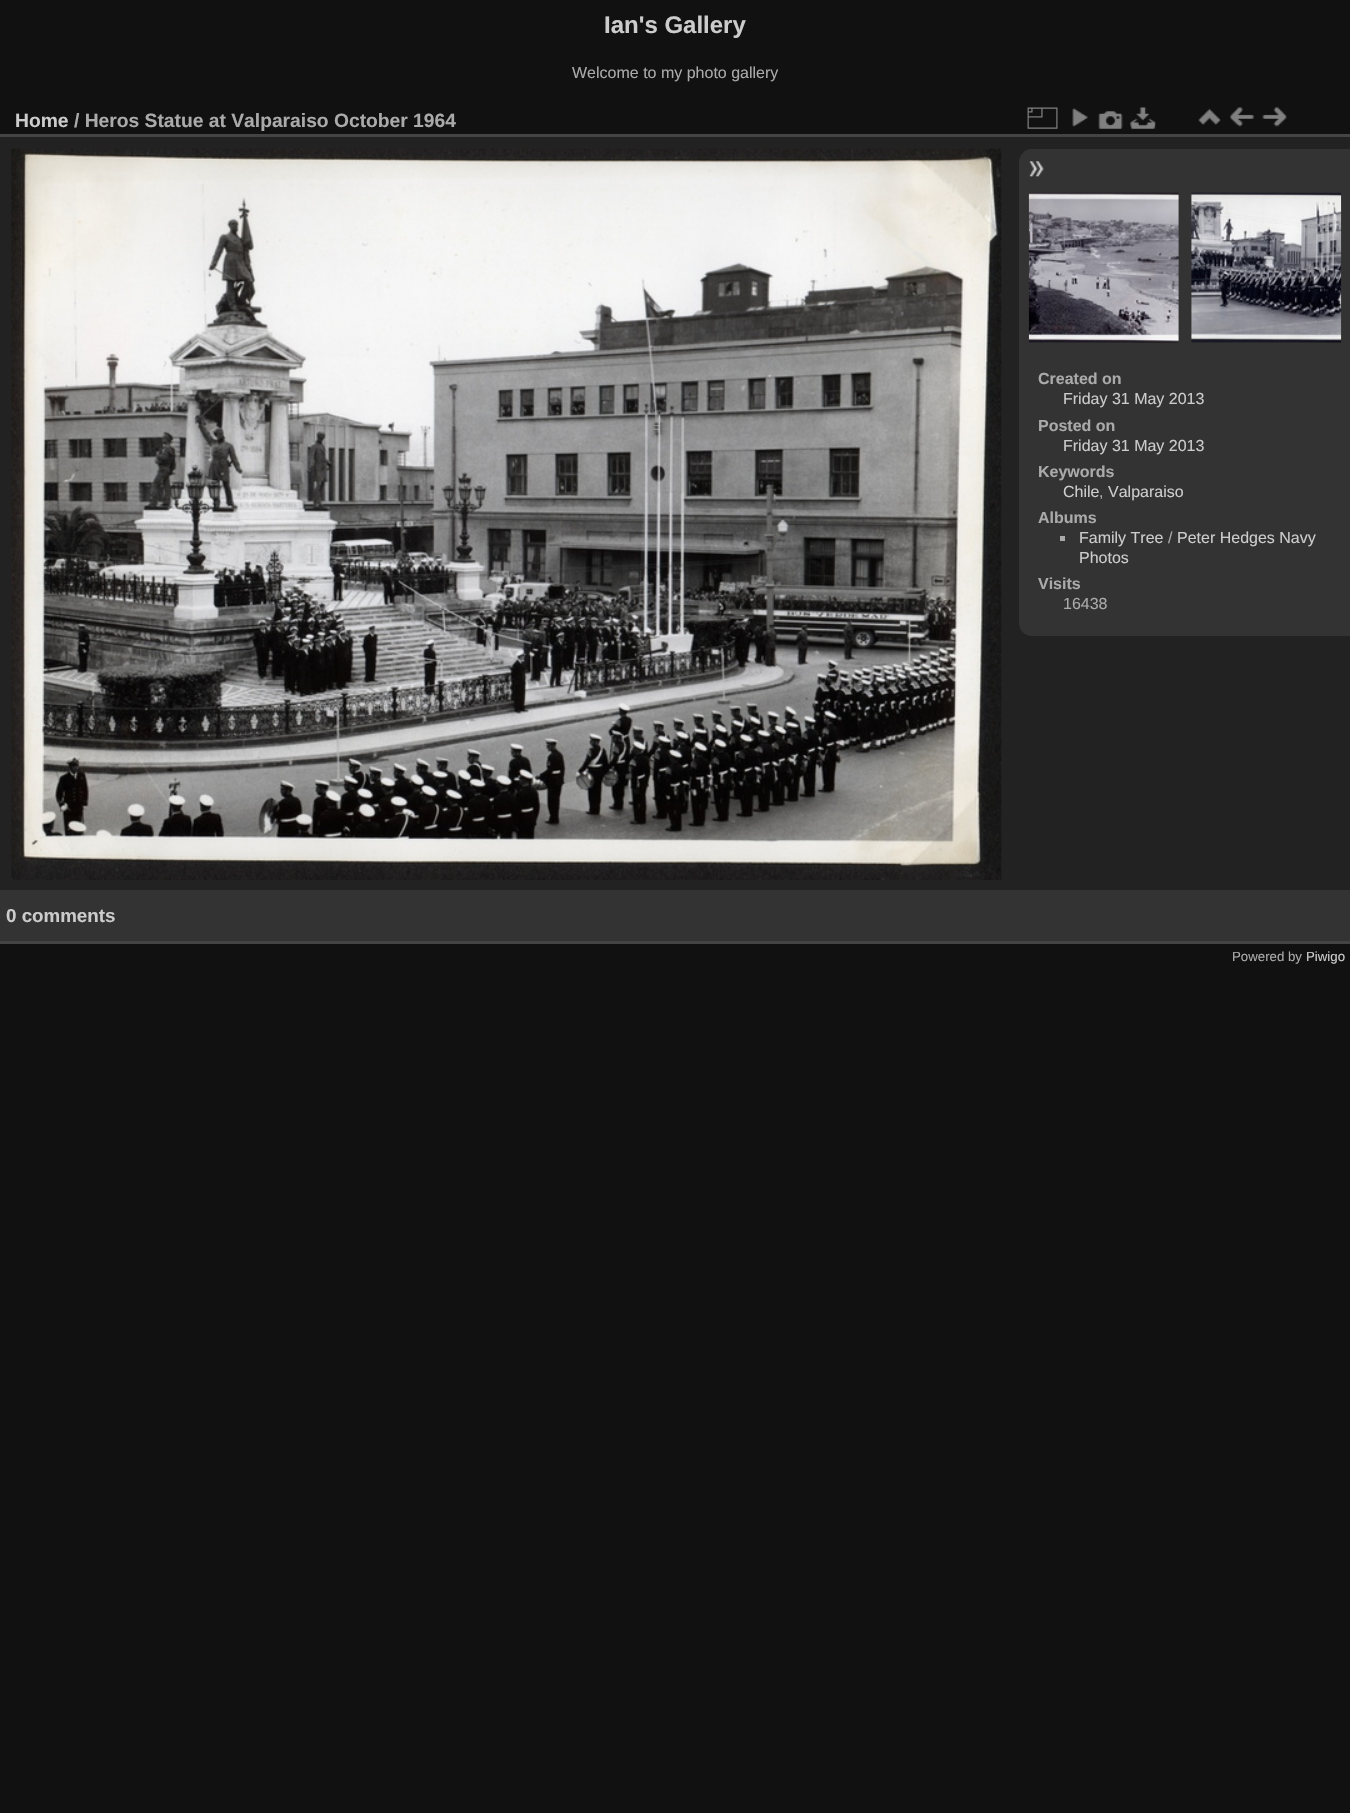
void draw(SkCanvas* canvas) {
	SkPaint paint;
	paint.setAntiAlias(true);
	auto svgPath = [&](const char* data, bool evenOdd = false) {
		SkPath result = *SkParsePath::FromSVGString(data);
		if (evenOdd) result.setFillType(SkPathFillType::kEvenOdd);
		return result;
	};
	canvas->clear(0xff111111);
	SkFont f1(fontMgr->matchFamilyStyle("Liberation Sans", SkFontStyle::Bold()), 24);
	f1.setSubpixel(true);
	paint.setColor(0xffcccccc);
	canvas->drawString("Ian's Gallery", 604, 33, f1, paint);
	SkFont f2(fontMgr->matchFamilyStyle("Liberation Sans", SkFontStyle::Normal()), 16);
	f2.setSubpixel(true);
	paint.setColor(0xffaaaaaa);
	canvas->drawString("Welcome to my photo gallery", 572, 78, f2, paint);
	paint.setColor(0xff222222);
	canvas->drawRect(SkRect::MakeXYWH(0, 137, 1350, 753), paint);
	paint.setColor(0xff444444);
	canvas->drawRect(SkRect::MakeXYWH(0, 941, 1350, 3), paint);
	canvas->drawRect(SkRect::MakeXYWH(0, 134, 1350, 3), paint);
	SkFont f3(fontMgr->matchFamilyStyle("Liberation Sans", SkFontStyle::Bold()), 19.25);
	f3.setSubpixel(true);
	paint.setColor(0xffcccccc);
	canvas->drawString("Home", 15, 127, f3, paint);
	paint.setColor(0xffaaaaaa);
	canvas->drawString("/ Heros Statue at Valparaiso October 1964", 74, 127, f3, paint);
	canvas->drawImageRect(SkImages::DeferredFromEncodedData(SkData::MakeFromFileName("img1.png")), SkRect::MakeXYWH(1027, 107, 31, 22), SkSamplingOptions());
	canvas->drawImageRect(SkImages::DeferredFromEncodedData(SkData::MakeFromFileName("img2.png")), SkRect::MakeXYWH(1072, 108, 16, 19), SkSamplingOptions());
	canvas->drawImageRect(SkImages::DeferredFromEncodedData(SkData::MakeFromFileName("img3.png")), SkRect::MakeXYWH(1098, 111, 25, 18), SkSamplingOptions());
	canvas->drawImageRect(SkImages::DeferredFromEncodedData(SkData::MakeFromFileName("img4.png")), SkRect::MakeXYWH(1130, 107, 26, 22), SkSamplingOptions());
	canvas->drawImageRect(SkImages::DeferredFromEncodedData(SkData::MakeFromFileName("img5.png")), SkRect::MakeXYWH(1198, 108, 23, 17), SkSamplingOptions());
	canvas->drawImageRect(SkImages::DeferredFromEncodedData(SkData::MakeFromFileName("img6.png")), SkRect::MakeXYWH(1230, 107, 24, 20), SkSamplingOptions());
	canvas->drawImageRect(SkImages::DeferredFromEncodedData(SkData::MakeFromFileName("img7.png")), SkRect::MakeXYWH(1262, 107, 25, 20), SkSamplingOptions());
	canvas->drawImageRect(SkImages::DeferredFromEncodedData(SkData::MakeFromFileName("img8.png")), SkRect::MakeXYWH(11, 148, 991, 732), SkSamplingOptions());
	paint.setColor(0xff333333);
	canvas->drawPath(svgPath("M1032 149H1350V636H1032C1025 636 1019 630 1019 623V162C1019 155 1025 149 1032 149Z"), paint);
	canvas->drawImageRect(SkImages::DeferredFromEncodedData(SkData::MakeFromFileName("img9.png")), SkRect::MakeXYWH(1029, 161, 15, 16), SkSamplingOptions());
	canvas->drawImageRect(SkImages::DeferredFromEncodedData(SkData::MakeFromFileName("img10.png")), SkRect::MakeXYWH(1028, 192, 151, 151), SkSamplingOptions());
	canvas->drawImageRect(SkImages::DeferredFromEncodedData(SkData::MakeFromFileName("img11.png")), SkRect::MakeXYWH(1191, 192, 151, 151), SkSamplingOptions());
	SkFont f4(fontMgr->matchFamilyStyle("Liberation Sans", SkFontStyle::Bold()), 16);
	f4.setSubpixel(true);
	paint.setColor(0xffaaaaaa);
	canvas->drawString("Created on", 1038, 384, f4, paint);
	paint.setColor(0xffcccccc);
	canvas->drawString("Friday 31 May 2013", 1063, 404, f2, paint);
	paint.setColor(0xffaaaaaa);
	canvas->drawString("Posted on", 1038, 431, f4, paint);
	paint.setColor(0xffcccccc);
	canvas->drawString("Friday 31 May 2013", 1063, 451, f2, paint);
	paint.setColor(0xffaaaaaa);
	canvas->drawString("Keywords", 1038, 477, f4, paint);
	paint.setColor(0xffcccccc);
	canvas->drawString("Chile", 1063, 497, f2, paint);
	paint.setColor(0xffaaaaaa);
	canvas->drawString(",", 1099, 497, f2, paint);
	paint.setColor(0xffcccccc);
	canvas->drawString("Valparaiso", 1108, 497, f2, paint);
	paint.setColor(0xffaaaaaa);
	canvas->drawString("Albums", 1038, 523, f4, paint);
	canvas->drawRect(SkRect::MakeXYWH(1060, 536, 5, 5), paint);
	paint.setColor(0xffcccccc);
	canvas->drawString("Family Tree", 1079, 543, f2, paint);
	paint.setColor(0xffaaaaaa);
	canvas->drawString("/", 1168, 543, f2, paint);
	paint.setColor(0xffcccccc);
	canvas->drawString("Peter Hedges Navy", 1177, 543, f2, paint);
	canvas->drawString("Photos", 1079, 563, f2, paint);
	paint.setColor(0xffaaaaaa);
	canvas->drawString("Visits", 1038, 589, f4, paint);
	canvas->drawString("16438", 1063, 609, f2, paint);
	paint.setColor(0xff333333);
	canvas->drawRect(SkRect::MakeXYWH(0, 890, 1350, 51), paint);
	SkFont f5(fontMgr->matchFamilyStyle("Liberation Sans", SkFontStyle::Bold()), 18.75);
	f5.setSubpixel(true);
	paint.setColor(0xffcccccc);
	canvas->drawString("0 comments", 6, 922, f5, paint);
	SkFont f6(fontMgr->matchFamilyStyle("Liberation Sans", SkFontStyle::Normal()), 13.25);
	f6.setSubpixel(true);
	paint.setColor(0xffaaaaaa);
	canvas->drawString("Powered by", 1232, 961, f6, paint);
	paint.setColor(0xffcccccc);
	canvas->drawString("Piwigo", 1306, 961, f6, paint);
}
